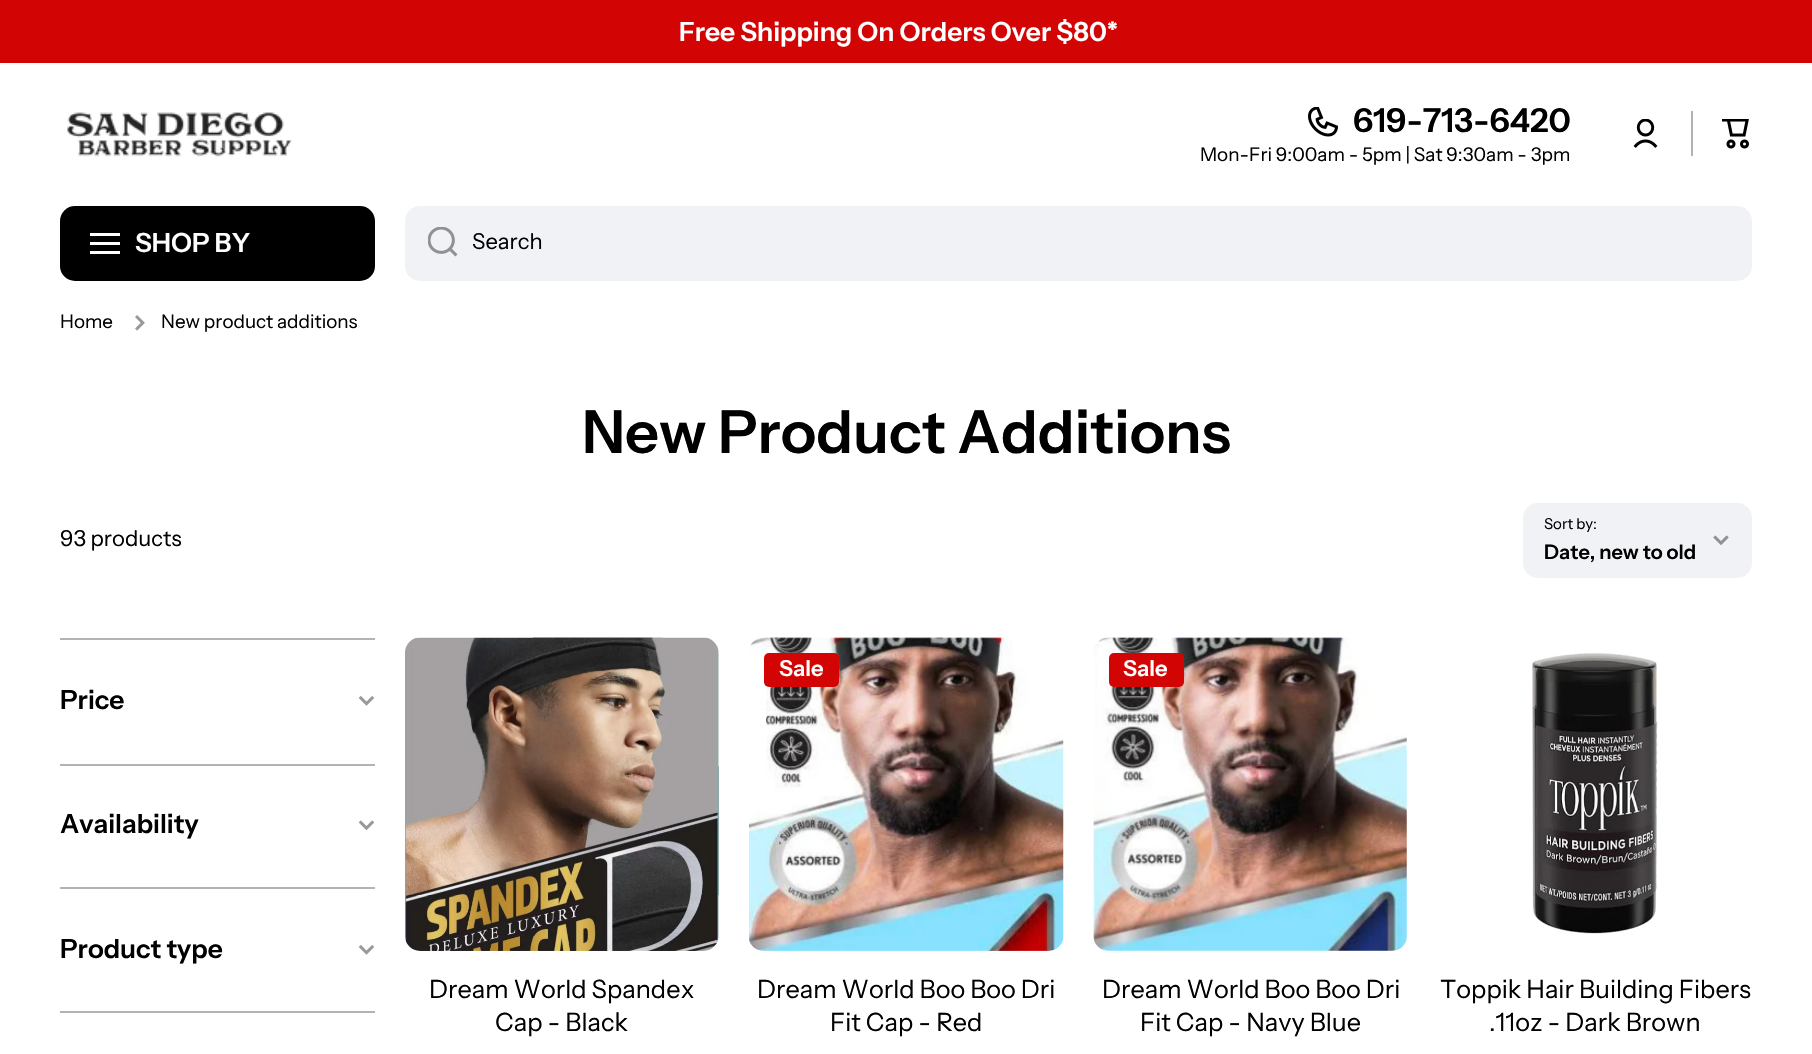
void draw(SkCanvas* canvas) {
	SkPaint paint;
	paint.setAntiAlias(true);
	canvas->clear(0xffffffff);
	paint.setColor(0xffd20404);
	canvas->drawRect(SkRect::MakeXYWH(0, 0, 1812, 63), paint);
	SkFont f1(fontMgr->matchFamilyStyle("Instrument Sans", SkFontStyle(600, SkFontStyle::kNormal_Width, SkFontStyle::kUpright_Slant)), 26.4);
	f1.setSubpixel(true);
	paint.setColor(0xffffffff);
	canvas->drawString("Free Shipping On Orders Over $80*", 679, 41, f1, paint);
	canvas->drawImageRect(SkImages::DeferredFromEncodedData(SkData::MakeFromFileName("img1.png")), SkRect::MakeXYWH(67, 112, 225, 45), SkSamplingOptions());
	canvas->drawImageRect(SkImages::DeferredFromEncodedData(SkData::MakeFromFileName("img2.png")), SkRect::MakeXYWH(1308, 107, 30, 30), SkSamplingOptions());
	SkFont f2(fontMgr->matchFamilyStyle("Instrument Sans", SkFontStyle(600, SkFontStyle::kNormal_Width, SkFontStyle::kUpright_Slant)), 33);
	f2.setSubpixel(true);
	paint.setColor(0xff000000);
	canvas->drawString("619-713-6420", 1353, 132, f2, paint);
	SkFont f3(fontMgr->matchFamilyStyle("Instrument Sans", SkFontStyle::Normal()), 18.9);
	f3.setSubpixel(true);
	canvas->drawString("Mon-Fri 9:00am - 5pm | Sat 9:30am - 3pm", 1200, 161, f3, paint);
	canvas->drawImageRect(SkImages::DeferredFromEncodedData(SkData::MakeFromFileName("img3.png")), SkRect::MakeXYWH(1633, 119, 25, 29), SkSamplingOptions());
	paint.setColor(0xffb3b3b3);
	canvas->drawRect(SkRect::MakeXYWH(1691, 111, 2, 45), paint);
	canvas->drawImageRect(SkImages::DeferredFromEncodedData(SkData::MakeFromFileName("img4.png")), SkRect::MakeXYWH(1722, 119, 27, 30), SkSamplingOptions());
	paint.setColor(0xff000000);
	canvas->drawRoundRect(SkRect::MakeXYWH(60, 206, 315, 75), 15, 15, paint);
	paint.setColor(0xffffffff);
	canvas->drawRect(SkRect::MakeXYWH(90, 233, 30, 3), paint);
	canvas->drawRect(SkRect::MakeXYWH(90, 242, 30, 3), paint);
	canvas->drawRect(SkRect::MakeXYWH(90, 251, 30, 3), paint);
	canvas->drawString("SHOP BY", 135, 252, f1, paint);
	paint.setColor(0xfff0f2f5);
	canvas->drawRoundRect(SkRect::MakeXYWH(405, 206, 1347, 75), 15, 15, paint);
	canvas->drawImageRect(SkImages::DeferredFromEncodedData(SkData::MakeFromFileName("img5.png")), SkRect::MakeXYWH(428, 227, 30, 30), SkSamplingOptions());
	SkFont f4(fontMgr->matchFamilyStyle("Instrument Sans", SkFontStyle::Normal()), 22);
	f4.setSubpixel(true);
	paint.setColor(0xff000000);
	canvas->drawString("Search", 472, 249, f4, paint);
	canvas->drawString("Home", 60, 328, f3, paint);
	canvas->drawImageRect(SkImages::DeferredFromEncodedData(SkData::MakeFromFileName("img6.png")), SkRect::MakeXYWH(135, 315, 10, 16), SkSamplingOptions());
	canvas->drawString("New product additions", 161, 328, f3, paint);
	SkFont f5(fontMgr->matchFamilyStyle("Instrument Sans", SkFontStyle(600, SkFontStyle::kNormal_Width, SkFontStyle::kUpright_Slant)), 59.4);
	f5.setSubpixel(true);
	canvas->drawString("New Product Additions", 582, 453, f5, paint);
	canvas->drawString("93 products", 60, 546, f4, paint);
	paint.setColor(0xfff0f2f5);
	canvas->drawRoundRect(SkRect::MakeXYWH(1523, 503, 229, 75), 15, 15, paint);
	SkFont f6(fontMgr->matchFamilyStyle("Instrument Sans", SkFontStyle::Normal()), 15);
	f6.setSubpixel(true);
	paint.setColor(0xff000000);
	canvas->drawString("Sort by:", 1544, 529, f6, paint);
	canvas->drawImageRect(SkImages::DeferredFromEncodedData(SkData::MakeFromFileName("img7.png")), SkRect::MakeXYWH(1713, 535, 16, 10), SkSamplingOptions());
	SkFont f7(fontMgr->matchFamilyStyle("Instrument Sans", SkFontStyle(600, SkFontStyle::kNormal_Width, SkFontStyle::kUpright_Slant)), 20);
	f7.setSubpixel(true);
	canvas->drawString("Date, new to old", 1544, 559, f7, paint);
	paint.setColor(0xffb3b3b3);
	canvas->drawRect(SkRect::MakeXYWH(60, 638, 315, 2), paint);
	paint.setColor(0xff000000);
	canvas->drawString("Price", 60, 709, f1, paint);
	canvas->drawImageRect(SkImages::DeferredFromEncodedData(SkData::MakeFromFileName("img8.png")), SkRect::MakeXYWH(358, 696, 16, 10), SkSamplingOptions());
	paint.setColor(0xffb3b3b3);
	canvas->drawRect(SkRect::MakeXYWH(60, 764, 315, 2), paint);
	paint.setColor(0xff000000);
	canvas->drawString("Availability", 60, 833, f1, paint);
	canvas->drawImageRect(SkImages::DeferredFromEncodedData(SkData::MakeFromFileName("img9.png")), SkRect::MakeXYWH(358, 820, 17, 11), SkSamplingOptions());
	paint.setColor(0xffb3b3b3);
	canvas->drawRect(SkRect::MakeXYWH(60, 887, 315, 2), paint);
	paint.setColor(0xff000000);
	canvas->drawString("Product type", 60, 958, f1, paint);
	canvas->drawImageRect(SkImages::DeferredFromEncodedData(SkData::MakeFromFileName("img8.png")), SkRect::MakeXYWH(358, 945, 16, 10), SkSamplingOptions());
	paint.setColor(0xffb3b3b3);
	canvas->drawRect(SkRect::MakeXYWH(60, 1011, 315, 2), paint);
	canvas->drawImageRect(SkImages::DeferredFromEncodedData(SkData::MakeFromFileName("img10.png")), SkRect::MakeXYWH(405, 637, 314, 314), SkSamplingOptions());
	SkFont f8(fontMgr->matchFamilyStyle("Instrument Sans", SkFontStyle::Normal()), 25.25);
	f8.setSubpixel(true);
	paint.setColor(0xff000000);
	canvas->drawString("Dream World Spandex", 429, 998, f8, paint);
	canvas->drawString("Cap - Black", 495, 1031, f8, paint);
	canvas->drawImageRect(SkImages::DeferredFromEncodedData(SkData::MakeFromFileName("img11.png")), SkRect::MakeXYWH(749, 637, 315, 314), SkSamplingOptions());
	paint.setColor(0xffd20404);
	canvas->drawRoundRect(SkRect::MakeXYWH(764, 653, 75, 34), 5, 5, paint);
	SkFont f9(fontMgr->matchFamilyStyle("Instrument Sans", SkFontStyle(600, SkFontStyle::kNormal_Width, SkFontStyle::kUpright_Slant)), 22);
	f9.setSubpixel(true);
	paint.setColor(0xffffffff);
	canvas->drawString("Sale", 779, 676, f9, paint);
	paint.setColor(0xff000000);
	canvas->drawString("Dream World Boo Boo Dri", 757, 998, f8, paint);
	canvas->drawString("Fit Cap - Red", 830, 1031, f8, paint);
	canvas->drawImageRect(SkImages::DeferredFromEncodedData(SkData::MakeFromFileName("img12.png")), SkRect::MakeXYWH(1093, 637, 314, 314), SkSamplingOptions());
	paint.setColor(0xffd20404);
	canvas->drawRoundRect(SkRect::MakeXYWH(1109, 653, 75, 34), 5, 5, paint);
	paint.setColor(0xffffffff);
	canvas->drawString("Sale", 1123, 676, f9, paint);
	paint.setColor(0xff000000);
	canvas->drawString("Dream World Boo Boo Dri", 1102, 998, f8, paint);
	canvas->drawString("Fit Cap - Navy Blue", 1140, 1031, f8, paint);
	canvas->drawImageRect(SkImages::DeferredFromEncodedData(SkData::MakeFromFileName("img13.png")), SkRect::MakeXYWH(1532, 651, 127, 283), SkSamplingOptions());
	canvas->drawString("Toppik Hair Building Fibers", 1440, 998, f8, paint);
	canvas->drawString(".11oz - Dark Brown", 1489, 1031, f8, paint);
}
